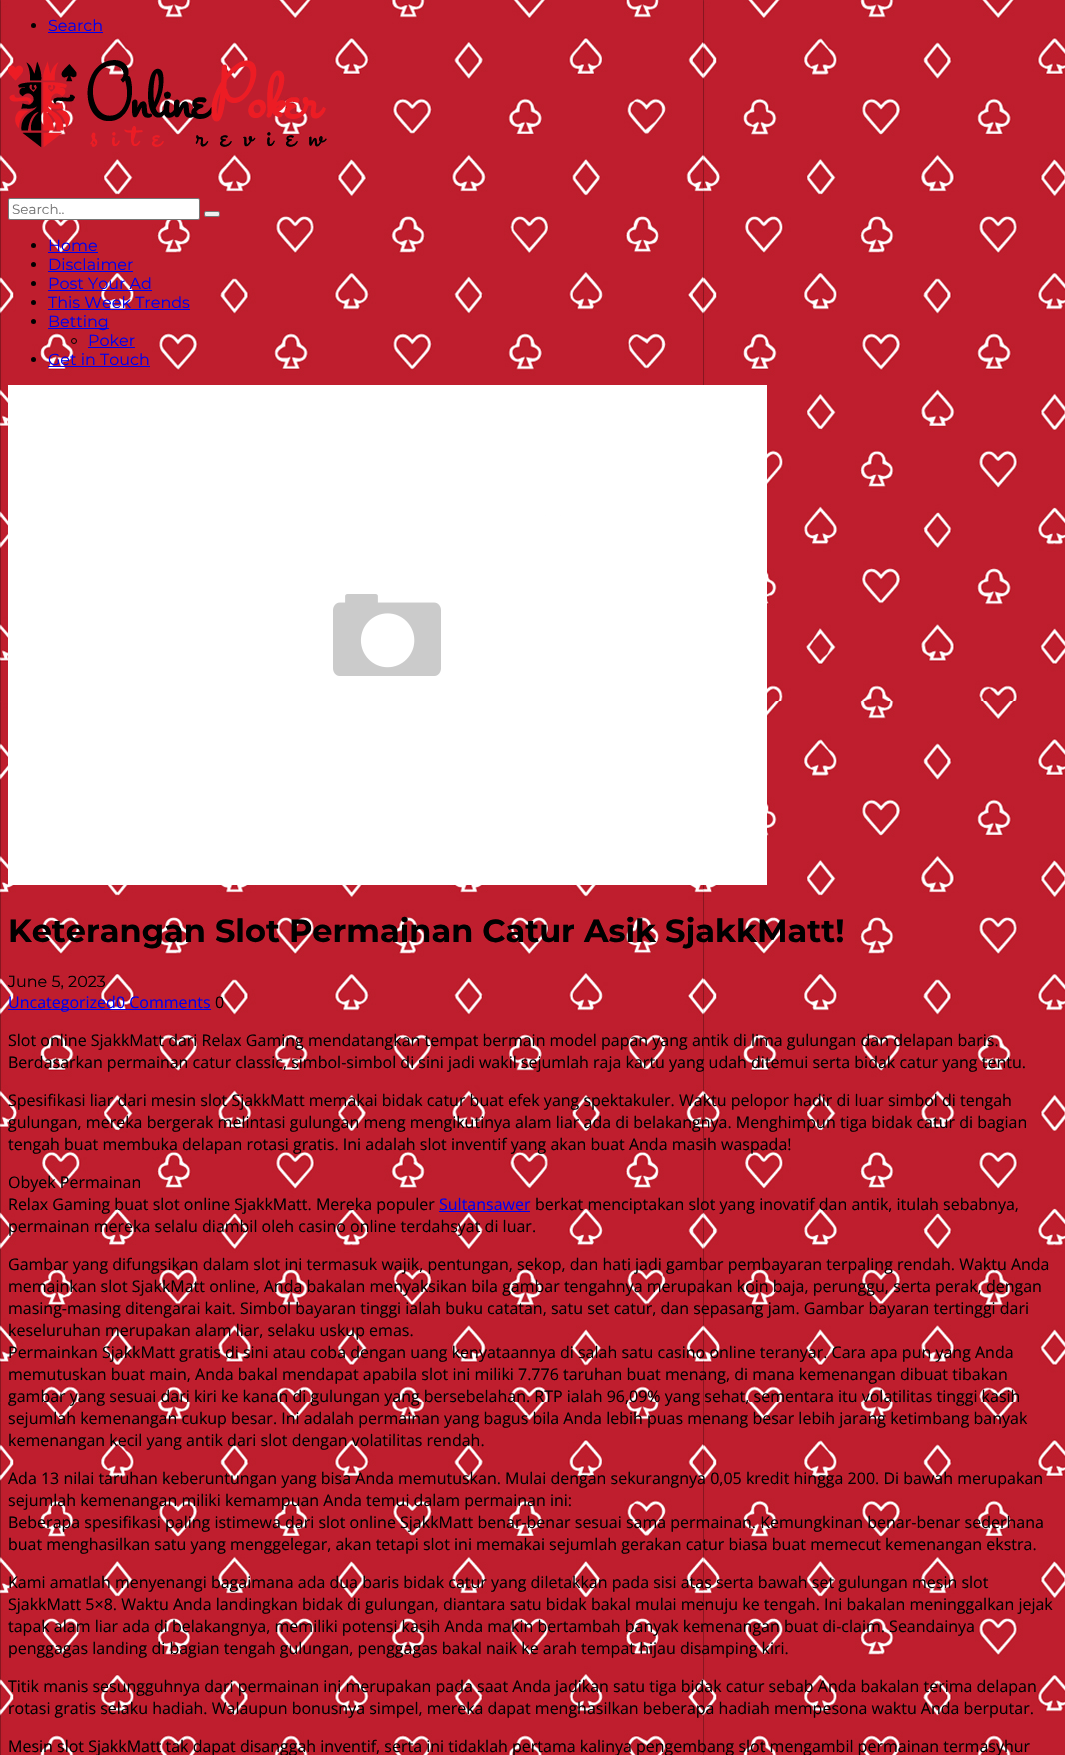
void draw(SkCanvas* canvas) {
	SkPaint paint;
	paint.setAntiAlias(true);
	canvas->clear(0xffffffff);
	canvas->drawImageRect(SkImages::DeferredFromEncodedData(SkData::MakeFromFileName("img1.png")), SkRect::MakeXYWH(0, 0, 1065, 1755), SkSamplingOptions());
	paint.setColor(0xff000000);
	canvas->drawCircle(33.5, 25.5, 2.5, paint);
	SkFont f1(fontMgr->matchFamilyStyle("Montserrat", SkFontStyle::Normal()), 16);
	f1.setSubpixel(true);
	paint.setColor(0xff0000ee);
	canvas->drawString("Search", 48, 31, f1, paint);
	canvas->drawRect(SkRect::MakeXYWH(48, 32, 55, 1), paint);
	canvas->drawImageRect(SkImages::DeferredFromEncodedData(SkData::MakeFromFileName("img2.png")), SkRect::MakeXYWH(8, 60, 319, 88), SkSamplingOptions());
	paint.setColor(0xffffffff);
	canvas->drawRoundRect(SkRect::MakeXYWH(8.5, 198.5, 191, 21), 1.5, 1.5, paint);
	paint.setStroke(true);
	paint.setStrokeWidth(1);
	paint.setColor(0xff767676);
	canvas->drawRoundRect(SkRect::MakeXYWH(8.5, 198.5, 191, 21), 1.5, 1.5, paint);
	SkFont f2(fontMgr->matchFamilyStyle("Montserrat", SkFontStyle::Normal()), 13.5);
	f2.setSubpixel(true);
	paint.setStroke(false);
	paint.setColor(0xff757575);
	canvas->drawString("Search..", 12, 214, f2, paint);
	paint.setColor(0xffefefef);
	canvas->drawRoundRect(SkRect::MakeXYWH(204.5, 211.5, 15, 5), 1.5, 1.5, paint);
	paint.setStroke(true);
	paint.setColor(0xff767676);
	canvas->drawRoundRect(SkRect::MakeXYWH(204.5, 211.5, 15, 5), 1.5, 1.5, paint);
	paint.setStroke(false);
	paint.setColor(0xff000000);
	canvas->drawCircle(33.5, 245.5, 2.5, paint);
	paint.setColor(0xff0000ee);
	canvas->drawString("Home", 48, 251, f1, paint);
	canvas->drawRect(SkRect::MakeXYWH(48, 252, 50, 1), paint);
	paint.setColor(0xff000000);
	canvas->drawCircle(33.5, 264.5, 2.5, paint);
	paint.setColor(0xff0000ee);
	canvas->drawString("Disclaimer", 48, 270, f1, paint);
	canvas->drawRect(SkRect::MakeXYWH(48, 271, 85, 1), paint);
	paint.setColor(0xff000000);
	canvas->drawCircle(33.5, 283.5, 2.5, paint);
	paint.setColor(0xff0000ee);
	canvas->drawString("Post Your Ad", 48, 289, f1, paint);
	canvas->drawRect(SkRect::MakeXYWH(48, 290, 104, 1), paint);
	paint.setColor(0xff000000);
	canvas->drawCircle(33.5, 302.5, 2.5, paint);
	paint.setColor(0xff0000ee);
	canvas->drawString("This Week Trends", 48, 308, f1, paint);
	canvas->drawRect(SkRect::MakeXYWH(48, 309, 142, 1), paint);
	paint.setColor(0xff000000);
	canvas->drawCircle(33.5, 321.5, 2.5, paint);
	paint.setColor(0xff0000ee);
	canvas->drawRect(SkRect::MakeXYWH(48, 328, 61, 1), paint);
	canvas->drawString("Betting", 48, 327, f1, paint);
	paint.setStroke(true);
	paint.setColor(0xff000000);
	canvas->drawCircle(74, 341, 2.5, paint);
	paint.setStroke(false);
	paint.setColor(0xff0000ee);
	canvas->drawString("Poker", 88, 346, f1, paint);
	canvas->drawRect(SkRect::MakeXYWH(88, 347, 47, 1), paint);
	paint.setColor(0xff000000);
	canvas->drawCircle(33.5, 359.5, 2.5, paint);
	paint.setColor(0xff0000ee);
	canvas->drawString("Get in Touch", 48, 365, f1, paint);
	canvas->drawRect(SkRect::MakeXYWH(48, 366, 102, 1), paint);
	canvas->drawImageRect(SkImages::DeferredFromEncodedData(SkData::MakeFromFileName("img3.png")), SkRect::MakeXYWH(8, 385, 759, 500), SkSamplingOptions());
	SkFont f3(fontMgr->matchFamilyStyle("Montserrat", SkFontStyle::Bold()), 32);
	f3.setSubpixel(true);
	paint.setColor(0xff000000);
	canvas->drawString("Keterangan Slot Permainan Catur Asik SjakkMatt!", 8, 942, f3, paint);
	canvas->drawString("June 5, 2023", 8, 987, f1, paint);
	paint.setColor(0xff0000ee);
	canvas->drawRect(SkRect::MakeXYWH(8, 1009, 203, 1), paint);
	SkFont f4(fontMgr->matchFamilyStyle("Open Sans", SkFontStyle::Normal()), 16);
	f4.setSubpixel(true);
	canvas->drawString("Uncategorized0 Comments", 8, 1008, f4, paint);
	paint.setColor(0xff000000);
	canvas->drawString("0", 215, 1008, f4, paint);
	canvas->drawString("Slot online SjakkMatt dari Relax Gaming mendatangkan tempat bermain model papan yang antik di lima gulungan dan delapan baris.", 8, 1046, f4, paint);
	canvas->drawString("Berdasarkan permainan catur classic, simbol-simbol di sini jadi wakil sejumlah raja kartu yang udah ditemui serta bidak catur yang tentu.", 8, 1068, f4, paint);
	canvas->drawString("Spesifikasi liar dari mesin slot SjakkMatt memakai bidak catur buat efek yang spektakuler. Waktu pelopor hadir di luar simbol di tengah", 8, 1106, f4, paint);
	canvas->drawString("gulungan, mereka bergerak melintasi gulungan meng mengikutinya alam liar ada di belakangnya. Menghimpun tiga bidak catur di bagian", 8, 1128, f4, paint);
	canvas->drawString("tengah buat membuka delapan rotasi gratis. Ini adalah slot inventif yang akan buat Anda masih waspada!", 8, 1150, f4, paint);
	canvas->drawString("Obyek Permainan", 8, 1188, f4, paint);
	canvas->drawString("Relax Gaming buat slot online SjakkMatt. Mereka populer", 8, 1210, f4, paint);
	paint.setColor(0xff0000ee);
	canvas->drawString("Sultansawer", 439, 1210, f4, paint);
	canvas->drawRect(SkRect::MakeXYWH(439, 1211, 91, 1), paint);
	paint.setColor(0xff000000);
	canvas->drawString("berkat menciptakan slot yang inovatif dan antik, itulah sebabnya,", 535, 1210, f4, paint);
	canvas->drawString("permainan mereka selalu diambil oleh casino online terdahsyat di luar.", 8, 1232, f4, paint);
	canvas->drawString("Gambar yang difungsikan dalam slot ini termasuk wajik, pentungan, sekop, dan hati jadi gambar pembayaran terpaling rendah. Waktu Anda", 8, 1270, f4, paint);
	canvas->drawString("memainkan slot SjakkMatt online, Anda bakalan menyaksikan bila gambar tengahnya merupakan koin baja, perunggu, serta perak, dengan", 8, 1292, f4, paint);
	canvas->drawString("masing-masing ditengarai kait. Simbol bayaran tinggi ialah buku catatan, satu set catur, dan sepasang jam. Gambar bayaran tertinggi dari", 8, 1314, f4, paint);
	canvas->drawString("keseluruhan merupakan alam liar, selaku uskup emas.", 8, 1336, f4, paint);
	canvas->drawString("Permainkan SjakkMatt gratis di sini atau coba dengan uang kenyataannya di salah satu casino online teranyar. Cara apa pun yang Anda", 8, 1358, f4, paint);
	canvas->drawString("memutuskan buat main, Anda bakal mendapat apabila slot ini miliki 7.776 taruhan buat menang, di mana kemenangan dibuat tibakan", 8, 1380, f4, paint);
	canvas->drawString("gambar yang sesuai dari kiri ke kanan di gulungan yang bersebelahan. RTP ialah 96,09% yang sehat, sementara itu volatilitas tinggi kasih", 8, 1402, f4, paint);
	canvas->drawString("sejumlah kemenangan cukup besar. Ini adalah permainan yang bagus bila Anda lebih puas menang besar lebih jarang ketimbang banyak", 8, 1424, f4, paint);
	canvas->drawString("kemenangan kecil yang antik dari slot dengan volatilitas rendah.", 8, 1446, f4, paint);
	canvas->drawString("Ada 13 nilai taruhan keberuntungan yang bisa Anda memutuskan. Mulai dengan sekurangnya 0,05 kredit hingga 200. Di bawah merupakan", 8, 1484, f4, paint);
	canvas->drawString("sejumlah kemenangan miliki kemampuan Anda temui dalam permainan ini:", 8, 1506, f4, paint);
	canvas->drawString("Beberapa spesifikasi paling istimewa dari slot online SjakkMatt benar-benar sesuai sama permainan. Kemungkinan benar-benar sederhana", 8, 1528, f4, paint);
	canvas->drawString("buat menghasilkan satu yang menggelegar, akan tetapi slot ini memakai sejumlah gerakan catur biasa buat memecut kemenangan ekstra.", 8, 1550, f4, paint);
	canvas->drawString("Kami amatlah menyenangi bagaimana ada dua baris bidak catur yang diletakkan pada sisi atas serta bawah set gulungan mesin slot", 8, 1588, f4, paint);
	canvas->drawString("SjakkMatt 5×8. Waktu Anda landingkan bidak di gulungan, diantara satu bidak bakal mulai menuju ke tengah. Ini bakalan meninggalkan jejak", 8, 1610, f4, paint);
	canvas->drawString("tapak alam liar ada di belakangnya, memiliki potensi kasih Anda makin bertambah banyak kemenangan buat di-claim. Seandainya", 8, 1632, f4, paint);
	canvas->drawString("penggagas landing di bagian tengah gulungan, penggagas bakal naik ke arah tempat hijau disamping kiri.", 8, 1654, f4, paint);
	canvas->drawString("Titik manis sesungguhnya dari permainan ini merupakan pada saat Anda jadikan satu tiga bidak catur sebab Anda bakalan terima delapan", 8, 1692, f4, paint);
	canvas->drawString("rotasi gratis selaku hadiah. Walaupun bonusnya simpel, mereka dapat menghasilkan beberapa hadiah mempesona waktu Anda berputar.", 8, 1714, f4, paint);
	canvas->drawString("Mesin slot SjakkMatt tak dapat disanggah inventif, serta ini tidaklah pertama kalinya pengembang slot mengambil permainan termasyhur", 8, 1752, f4, paint);
}
